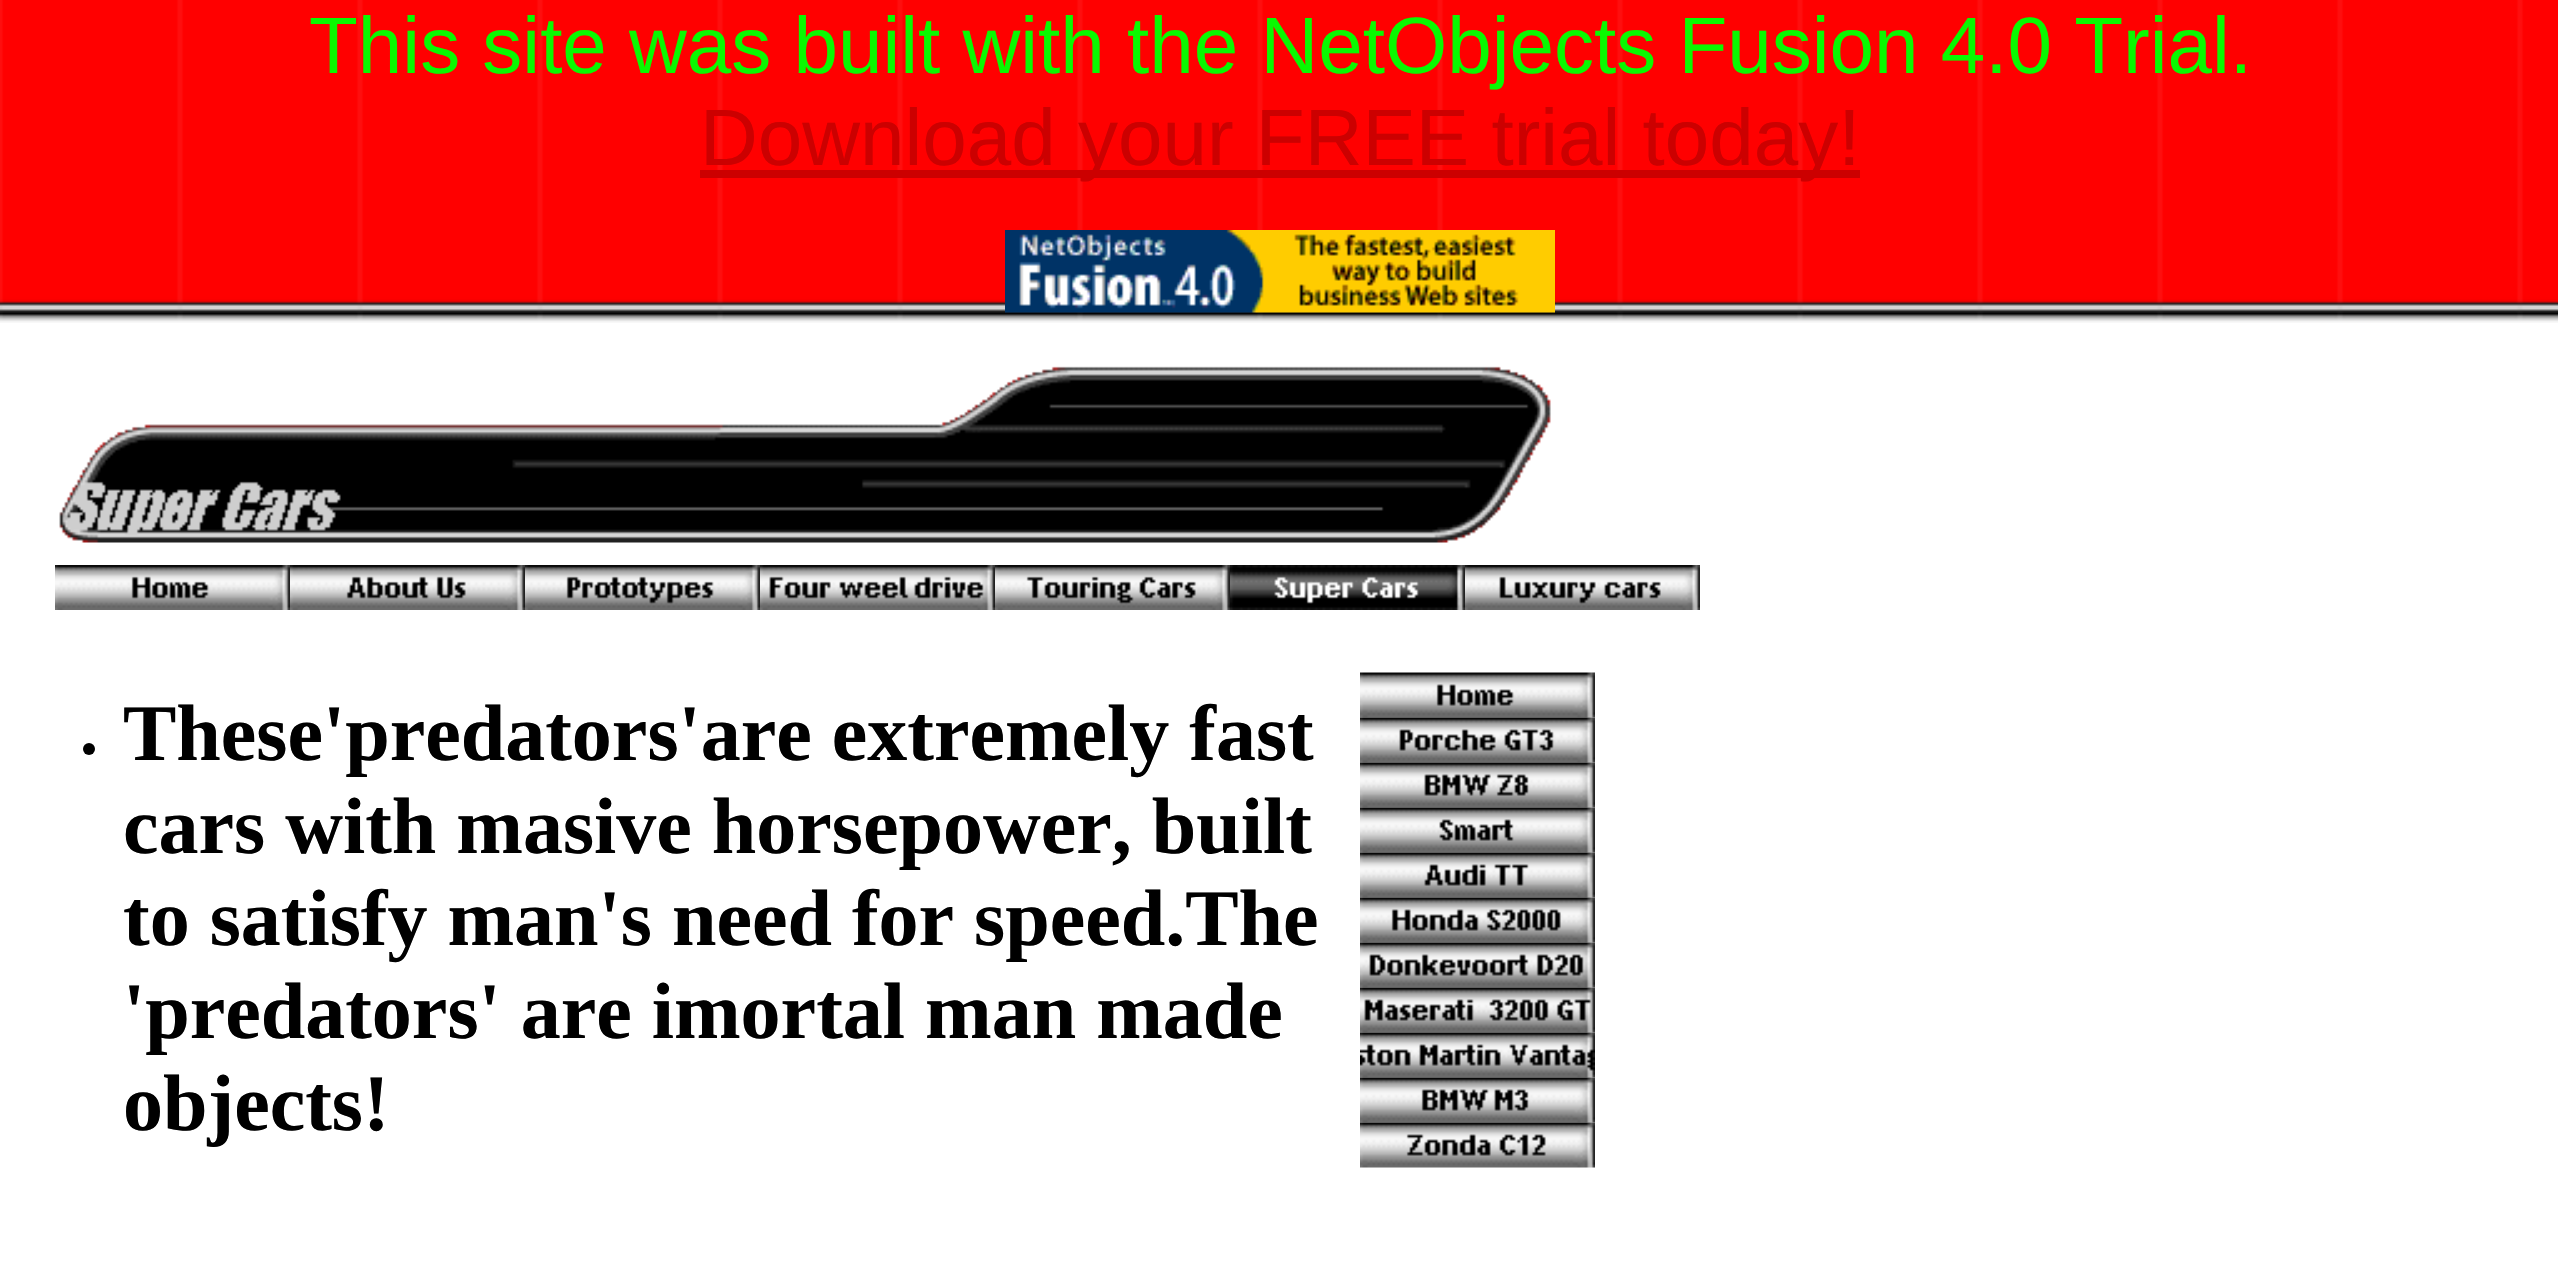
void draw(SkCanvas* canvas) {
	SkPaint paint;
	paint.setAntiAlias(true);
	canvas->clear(0xffffffff);
	canvas->drawImageRect(SkImages::DeferredFromEncodedData(SkData::MakeFromFileName("img1.png")), SkRect::MakeXYWH(0, 0, 2558, 323), SkSamplingOptions());
	SkFont f1(fontMgr->matchFamilyStyle("Liberation Sans", SkFontStyle::Normal()), 80);
	f1.setSubpixel(true);
	paint.setColor(0xff09f900);
	canvas->drawString("This site was built with the NetObjects Fusion 4.0 Trial.", 309, 73, f1, paint);
	paint.setColor(0xffcc0000);
	canvas->drawRect(SkRect::MakeXYWH(700, 170, 1160, 8), paint);
	canvas->drawString("Download your FREE trial today!", 700, 165, f1, paint);
	canvas->drawImageRect(SkImages::DeferredFromEncodedData(SkData::MakeFromFileName("img2.png")), SkRect::MakeXYWH(1005, 230, 550, 83), SkSamplingOptions());
	canvas->drawImageRect(SkImages::DeferredFromEncodedData(SkData::MakeFromFileName("img3.png")), SkRect::MakeXYWH(59, 366, 1492, 177), SkSamplingOptions());
	canvas->drawImageRect(SkImages::DeferredFromEncodedData(SkData::MakeFromFileName("img4.png")), SkRect::MakeXYWH(55, 565, 235, 45), SkSamplingOptions());
	canvas->drawImageRect(SkImages::DeferredFromEncodedData(SkData::MakeFromFileName("img5.png")), SkRect::MakeXYWH(290, 565, 235, 45), SkSamplingOptions());
	canvas->drawImageRect(SkImages::DeferredFromEncodedData(SkData::MakeFromFileName("img6.png")), SkRect::MakeXYWH(525, 565, 235, 45), SkSamplingOptions());
	canvas->drawImageRect(SkImages::DeferredFromEncodedData(SkData::MakeFromFileName("img7.png")), SkRect::MakeXYWH(760, 565, 235, 45), SkSamplingOptions());
	canvas->drawImageRect(SkImages::DeferredFromEncodedData(SkData::MakeFromFileName("img8.png")), SkRect::MakeXYWH(995, 565, 235, 45), SkSamplingOptions());
	canvas->drawImageRect(SkImages::DeferredFromEncodedData(SkData::MakeFromFileName("img9.png")), SkRect::MakeXYWH(1230, 565, 235, 45), SkSamplingOptions());
	canvas->drawImageRect(SkImages::DeferredFromEncodedData(SkData::MakeFromFileName("img10.png")), SkRect::MakeXYWH(1465, 565, 235, 45), SkSamplingOptions());
	paint.setColor(0xff000000);
	canvas->drawCircle(89, 749, 6, paint);
	SkFont f2(fontMgr->matchFamilyStyle("Liberation Serif", SkFontStyle::Bold()), 80);
	f2.setSubpixel(true);
	canvas->drawString("These'predators'are extremely fast", 123, 760, f2, paint);
	canvas->drawString("cars with masive horsepower, built", 123, 853, f2, paint);
	canvas->drawString("to satisfy man's need for speed.The", 123, 945, f2, paint);
	canvas->drawString("'predators' are imortal man made", 123, 1038, f2, paint);
	canvas->drawString("objects!", 123, 1130, f2, paint);
	canvas->drawImageRect(SkImages::DeferredFromEncodedData(SkData::MakeFromFileName("img11.png")), SkRect::MakeXYWH(1360, 672, 235, 46), SkSamplingOptions());
	canvas->drawImageRect(SkImages::DeferredFromEncodedData(SkData::MakeFromFileName("img12.png")), SkRect::MakeXYWH(1360, 717, 235, 46), SkSamplingOptions());
	canvas->drawImageRect(SkImages::DeferredFromEncodedData(SkData::MakeFromFileName("img13.png")), SkRect::MakeXYWH(1360, 762, 235, 46), SkSamplingOptions());
	canvas->drawImageRect(SkImages::DeferredFromEncodedData(SkData::MakeFromFileName("img14.png")), SkRect::MakeXYWH(1360, 807, 235, 46), SkSamplingOptions());
	canvas->drawImageRect(SkImages::DeferredFromEncodedData(SkData::MakeFromFileName("img15.png")), SkRect::MakeXYWH(1360, 852, 235, 46), SkSamplingOptions());
	canvas->drawImageRect(SkImages::DeferredFromEncodedData(SkData::MakeFromFileName("img16.png")), SkRect::MakeXYWH(1360, 897, 235, 46), SkSamplingOptions());
	canvas->drawImageRect(SkImages::DeferredFromEncodedData(SkData::MakeFromFileName("img17.png")), SkRect::MakeXYWH(1360, 942, 235, 46), SkSamplingOptions());
	canvas->drawImageRect(SkImages::DeferredFromEncodedData(SkData::MakeFromFileName("img18.png")), SkRect::MakeXYWH(1360, 987, 235, 46), SkSamplingOptions());
	canvas->drawImageRect(SkImages::DeferredFromEncodedData(SkData::MakeFromFileName("img19.png")), SkRect::MakeXYWH(1360, 1032, 235, 46), SkSamplingOptions());
	canvas->drawImageRect(SkImages::DeferredFromEncodedData(SkData::MakeFromFileName("img20.png")), SkRect::MakeXYWH(1360, 1077, 235, 46), SkSamplingOptions());
	canvas->drawImageRect(SkImages::DeferredFromEncodedData(SkData::MakeFromFileName("img21.png")), SkRect::MakeXYWH(1360, 1122, 235, 46), SkSamplingOptions());
}
